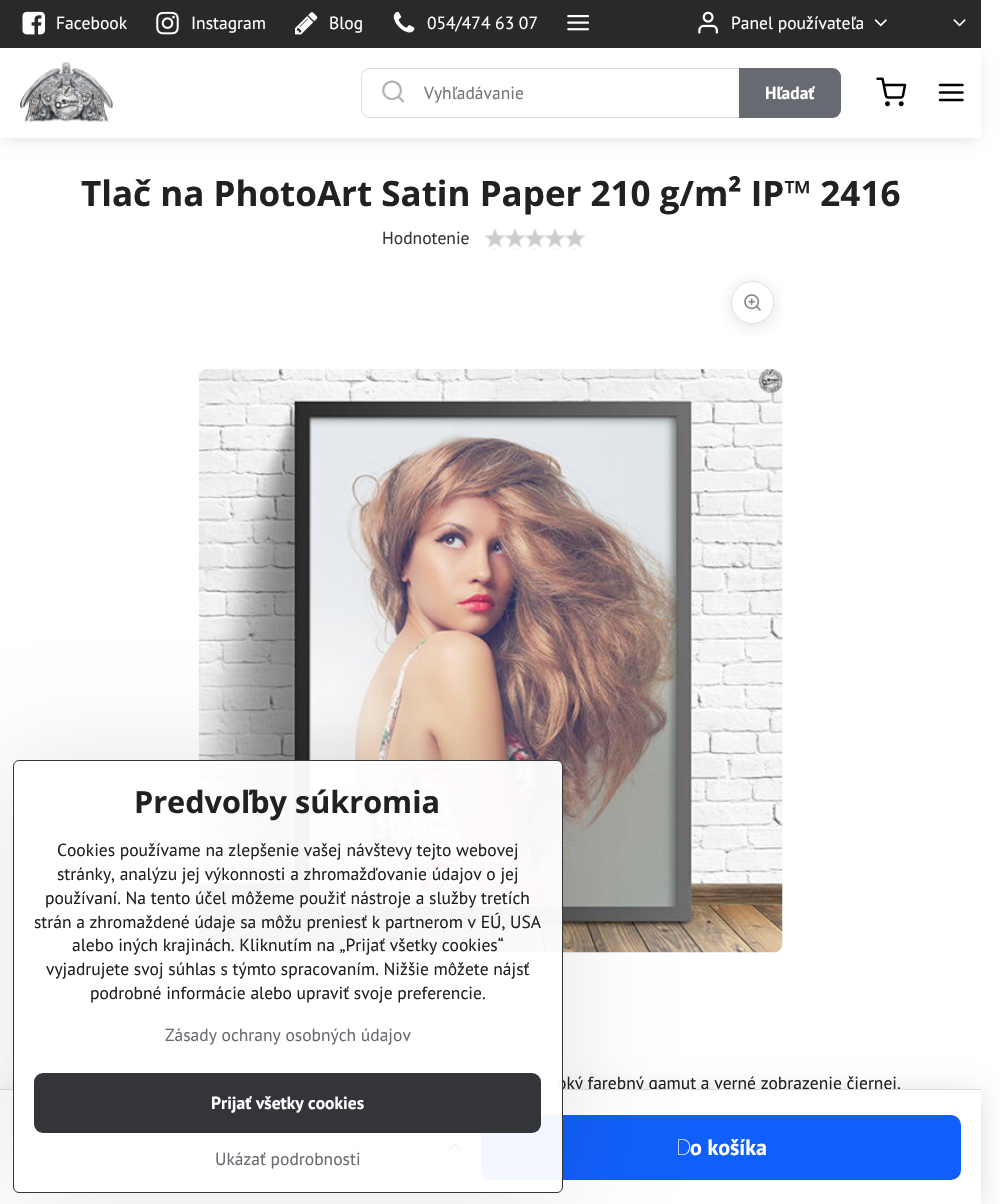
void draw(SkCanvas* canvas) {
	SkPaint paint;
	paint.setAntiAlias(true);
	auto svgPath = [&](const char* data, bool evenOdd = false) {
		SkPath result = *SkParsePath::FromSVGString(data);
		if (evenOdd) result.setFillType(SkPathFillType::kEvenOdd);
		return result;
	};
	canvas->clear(0xffffffff);
	paint.setColor(0xff292929);
	canvas->drawRect(SkRect::MakeXYWH(0, 0, 981, 48), paint);
	canvas->drawImageRect(SkImages::DeferredFromEncodedData(SkData::MakeFromFileName("img1.png")), SkRect::MakeXYWH(22, 11, 23, 24), SkSamplingOptions());
	SkFont f1(fontMgr->matchFamilyStyle("PT Sans", SkFontStyle::Normal()), 17.5);
	f1.setSubpixel(true);
	paint.setColor(0xffffffff);
	canvas->drawString("Facebook", 56, 29, f1, paint);
	canvas->drawImageRect(SkImages::DeferredFromEncodedData(SkData::MakeFromFileName("img2.png")), SkRect::MakeXYWH(156, 11, 23, 24), SkSamplingOptions());
	canvas->drawString("Instagram", 191, 29, f1, paint);
	canvas->drawImageRect(SkImages::DeferredFromEncodedData(SkData::MakeFromFileName("img3.png")), SkRect::MakeXYWH(295, 12, 23, 23), SkSamplingOptions());
	canvas->drawString("Blog", 329, 29, f1, paint);
	canvas->drawImageRect(SkImages::DeferredFromEncodedData(SkData::MakeFromFileName("img4.png")), SkRect::MakeXYWH(393, 11, 22, 22), SkSamplingOptions());
	canvas->drawString("054/474 63 07", 427, 29, f1, paint);
	canvas->drawImageRect(SkImages::DeferredFromEncodedData(SkData::MakeFromFileName("img5.png")), SkRect::MakeXYWH(567, 15, 23, 16), SkSamplingOptions());
	canvas->drawImageRect(SkImages::DeferredFromEncodedData(SkData::MakeFromFileName("img6.png")), SkRect::MakeXYWH(698, 11, 20, 23), SkSamplingOptions());
	canvas->drawString("Panel používateľa", 731, 29, f1, paint);
	canvas->drawImageRect(SkImages::DeferredFromEncodedData(SkData::MakeFromFileName("img7.png")), SkRect::MakeXYWH(874, 19, 13, 8), SkSamplingOptions());
	canvas->drawImageRect(SkImages::DeferredFromEncodedData(SkData::MakeFromFileName("img8.png")), SkRect::MakeXYWH(953, 19, 13, 8), SkSamplingOptions());
	paint.setColor(0x26000014);
	paint.setMaskFilter(SkMaskFilter::MakeBlur(kNormal_SkBlurStyle, 7.5));
	canvas->drawRect(SkRect::MakeXYWH(5, 58, 971, 80), paint);
	paint.setMaskFilter(nullptr);
	paint.setColor(0xffffffff);
	canvas->drawRect(SkRect::MakeXYWH(0, 48, 981, 90), paint);
	canvas->drawImageRect(SkImages::DeferredFromEncodedData(SkData::MakeFromFileName("img9.png")), SkRect::MakeXYWH(20, 62, 93, 61), SkSamplingOptions());
	paint.setStroke(true);
	paint.setStrokeWidth(1);
	paint.setColor(0xffdbdbdb);
	canvas->drawRoundRect(SkRect::MakeXYWH(361.5, 68.5, 479, 49), 8.5, 8.5, paint);
	canvas->drawImageRect(SkImages::DeferredFromEncodedData(SkData::MakeFromFileName("img10.png")), SkRect::MakeXYWH(382, 80, 22, 23), SkSamplingOptions());
	paint.setStroke(false);
	paint.setColor(0xff757575);
	canvas->drawString("Vyhľadávanie", 424, 99, f1, paint);
	paint.setColor(0xff676a70);
	canvas->drawPath(svgPath("M739 68H832C837 68 841 72 841 77V109C841 114 837 118 832 118H739Z"), paint);
	SkFont f2(fontMgr->matchFamilyStyle("PT Sans", SkFontStyle::Bold()), 17.5);
	f2.setSubpixel(true);
	paint.setColor(0xffffffff);
	canvas->drawString("Hľadať", 765, 99, f2, paint);
	canvas->drawImageRect(SkImages::DeferredFromEncodedData(SkData::MakeFromFileName("img11.png")), SkRect::MakeXYWH(876, 77, 31, 30), SkSamplingOptions());
	canvas->drawImageRect(SkImages::DeferredFromEncodedData(SkData::MakeFromFileName("img12.png")), SkRect::MakeXYWH(938, 83, 26, 19), SkSamplingOptions());
	SkFont f3(fontMgr->matchFamilyStyle("Open Sans", SkFontStyle::Bold()), 35);
	f3.setSubpixel(true);
	paint.setColor(0xff202123);
	canvas->drawString("Tlač na PhotoArt Satin Paper 210 g/m² IP™ 2416", 81, 206, f3, paint);
	paint.setColor(0xff333538);
	canvas->drawString("Hodnotenie", 382, 244, f1, paint);
	canvas->drawImageRect(SkImages::DeferredFromEncodedData(SkData::MakeFromFileName("img13.png")), SkRect::MakeXYWH(485, 228, 100, 21), SkSamplingOptions());
	paint.setColor(0xff202123);
	canvas->drawString("oký farebný gamut a verné zobrazenie čiernej.", 557, 1089, f1, paint);
	paint.setColor(0x26000014);
	paint.setMaskFilter(SkMaskFilter::MakeBlur(kNormal_SkBlurStyle, 13));
	canvas->drawRect(SkRect::MakeXYWH(3, 1094, 976, 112), paint);
	paint.setMaskFilter(nullptr);
	paint.setColor(0xffffffff);
	canvas->drawRect(SkRect::MakeXYWH(0, 1090, 981, 114), paint);
	paint.setColor(0xffdbdbdb);
	canvas->drawRect(SkRect::MakeXYWH(0, 1089, 981, 1), paint);
	paint.setStroke(true);
	canvas->drawRoundRect(SkRect::MakeXYWH(338.5, 1115.5, 134, 64), 8.5, 8.5, paint);
	canvas->drawImageRect(SkImages::DeferredFromEncodedData(SkData::MakeFromFileName("img14.png")), SkRect::MakeXYWH(350, 1143, 14, 8), SkSamplingOptions());
	canvas->drawImageRect(SkImages::DeferredFromEncodedData(SkData::MakeFromFileName("img15.png")), SkRect::MakeXYWH(448, 1143, 14, 8), SkSamplingOptions());
	paint.setStroke(false);
	paint.setColor(0xff115ffa);
	canvas->drawRoundRect(SkRect::MakeXYWH(481, 1115, 480, 65), 10, 10, paint);
	SkFont f4(fontMgr->matchFamilyStyle("Noto Sans", SkFontStyle(100, SkFontStyle::kNormal_Width, SkFontStyle::kUpright_Slant)), 22);
	f4.setSubpixel(true);
	paint.setColor(0xffffffff);
	canvas->drawString("D", 676, 1155, f4, paint);
	SkFont f5(fontMgr->matchFamilyStyle("PT Sans", SkFontStyle::Bold()), 22);
	f5.setSubpixel(true);
	canvas->drawString("o košíka", 690, 1155, f5, paint);
	paint.setColor(0x26333343);
	paint.setMaskFilter(SkMaskFilter::MakeBlur(kNormal_SkBlurStyle, 7.5));
	canvas->drawRoundRect(SkRect::MakeXYWH(731, 284, 43, 42), 21, 21, paint);
	paint.setMaskFilter(nullptr);
	paint.setColor(0xffffffff);
	canvas->drawCircle(752.5, 302.5, 21, paint);
	paint.setStroke(true);
	paint.setColor(0xffe2e2e2);
	canvas->drawCircle(752.5, 302.5, 21, paint);
	canvas->drawImageRect(SkImages::DeferredFromEncodedData(SkData::MakeFromFileName("img16.png")), SkRect::MakeXYWH(744, 294, 17, 17), SkSamplingOptions());
	canvas->drawImageRect(SkImages::DeferredFromEncodedData(SkData::MakeFromFileName("img17.png")), SkRect::MakeXYWH(198, 368, 585, 585), SkSamplingOptions());
	canvas->save();
	canvas->clipPath(svgPath("M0 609H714V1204H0ZM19 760H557C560.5 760 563 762.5 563 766V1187C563 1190.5 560.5 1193 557 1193H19C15.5 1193 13 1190.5 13 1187V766C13 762.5 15.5 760 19 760Z", true), true);
	paint.setStroke(false);
	paint.setColor(0x1a000000);
	paint.setMaskFilter(SkMaskFilter::MakeBlur(kNormal_SkBlurStyle, 50));
	canvas->drawRoundRect(SkRect::MakeXYWH(13, 760, 550, 433), 6, 6, paint);
	paint.setMaskFilter(nullptr);
	canvas->restore();
	paint.setColor(0xf2ffffff);
	canvas->drawRoundRect(SkRect::MakeXYWH(13.5, 760.5, 549, 432), 5.5, 5.5, paint);
	paint.setStroke(true);
	paint.setColor(0xff333538);
	canvas->drawRoundRect(SkRect::MakeXYWH(13.5, 760.5, 549, 432), 5.5, 5.5, paint);
	SkFont f6(fontMgr->matchFamilyStyle("Open Sans", SkFontStyle::Bold()), 30.6);
	f6.setSubpixel(true);
	paint.setStroke(false);
	paint.setColor(0xff202123);
	canvas->drawString("Predvoľby súkromia", 134, 813, f6, paint);
	canvas->drawString("Cookies používame na zlepšenie vašej návštevy tejto webovej", 57, 856, f1, paint);
	canvas->drawString("stránky, analýzu jej výkonnosti a zhromažďovanie údajov o jej", 57, 880, f1, paint);
	canvas->drawString("používaní. Na tento účel môžeme použiť nástroje a služby tretích", 45, 904, f1, paint);
	canvas->drawString("strán a zhromaždené údaje sa môžu preniesť k partnerom v EÚ, USA", 34, 928, f1, paint);
	canvas->drawString("alebo iných krajinách. Kliknutím na „Prijať všetky cookies“", 72, 951, f1, paint);
	canvas->drawString("vyjadrujete svoj súhlas s týmto spracovaním. Nižšie môžete nájsť", 46, 975, f1, paint);
	canvas->drawString("podrobné informácie alebo upraviť svoje preferencie.", 90, 999, f1, paint);
	paint.setColor(0xff676a70);
	canvas->drawString("Zásady ochrany osobných údajov", 165, 1041, f1, paint);
	paint.setColor(0xff333538);
	canvas->drawRoundRect(SkRect::MakeXYWH(34, 1073, 507, 60), 9, 9, paint);
	paint.setColor(0xffffffff);
	canvas->drawString("Prijať všetky cookies", 211, 1109, f2, paint);
	paint.setColor(0xff676a70);
	canvas->drawString("Ukázať podrobnosti", 215, 1165, f1, paint);
}
